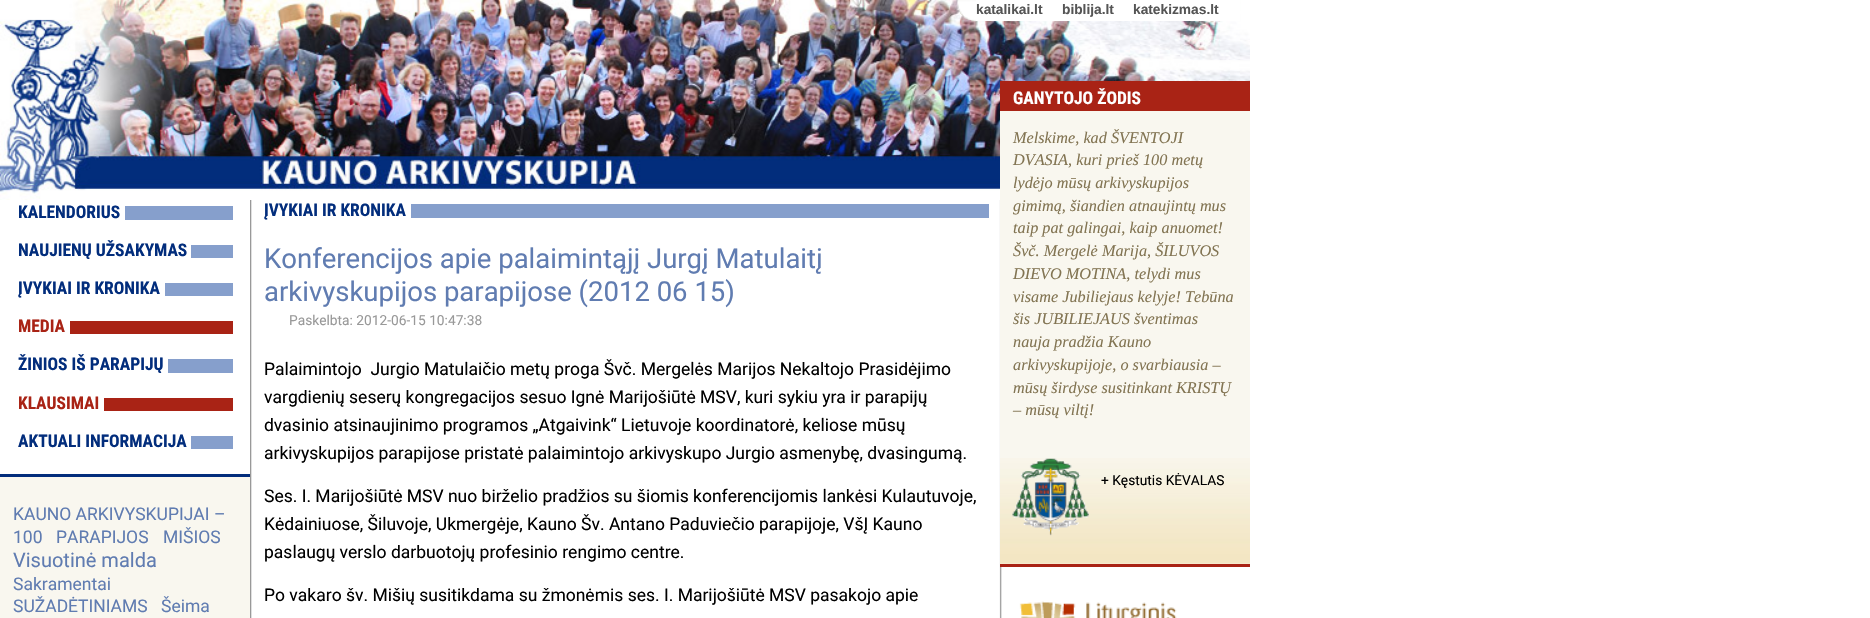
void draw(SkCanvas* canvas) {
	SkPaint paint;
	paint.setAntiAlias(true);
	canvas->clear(0xffffffff);
	canvas->drawImageRect(SkImages::DeferredFromEncodedData(SkData::MakeFromFileName("img1.png")), SkRect::MakeXYWH(250, 200, 752, 418), SkSamplingOptions());
	canvas->drawImageRect(SkImages::DeferredFromEncodedData(SkData::MakeFromFileName("img2.png")), SkRect::MakeXYWH(0, 0, 1250, 200), SkSamplingOptions());
	canvas->drawImageRect(SkImages::DeferredFromEncodedData(SkData::MakeFromFileName("img3.png")), SkRect::MakeXYWH(957, 0, 20, 22), SkSamplingOptions());
	paint.setColor(0xffffffff);
	canvas->drawRect(SkRect::MakeXYWH(976, 0, 264, 21), paint);
	SkFont f1(fontMgr->matchFamilyStyle("Liberation Sans", SkFontStyle::Bold()), 13.75);
	f1.setSubpixel(true);
	paint.setColor(0xff555555);
	canvas->drawString("katalikai.lt", 976, 14, f1, paint);
	canvas->drawString("biblija.lt", 1062, 14, f1, paint);
	canvas->drawString("katekizmas.lt", 1133, 14, f1, paint);
	paint.setColor(0xff869fcc);
	canvas->drawRect(SkRect::MakeXYWH(125, 206, 108, 14), paint);
	SkFont f2(fontMgr->matchFamilyStyle("Roboto Condensed", SkFontStyle::Bold()), 17.5);
	f2.setSubpixel(true);
	paint.setColor(0xff022d7c);
	canvas->drawString("KALENDORIUS", 18, 218, f2, paint);
	paint.setColor(0xff869fcc);
	canvas->drawRect(SkRect::MakeXYWH(191, 245, 42, 13), paint);
	paint.setColor(0xff022d7c);
	canvas->drawString("NAUJIENŲ UŽSAKYMAS", 18, 256, f2, paint);
	paint.setColor(0xff869fcc);
	canvas->drawRect(SkRect::MakeXYWH(165, 283, 68, 13), paint);
	paint.setColor(0xff022d7c);
	canvas->drawString("ĮVYKIAI IR KRONIKA", 18, 294, f2, paint);
	paint.setColor(0xffa92315);
	canvas->drawRect(SkRect::MakeXYWH(70, 321, 163, 13), paint);
	canvas->drawString("MEDIA", 18, 332, f2, paint);
	paint.setColor(0xff869fcc);
	canvas->drawRect(SkRect::MakeXYWH(168, 359, 65, 14), paint);
	paint.setColor(0xff022d7c);
	canvas->drawString("ŽINIOS IŠ PARAPIJŲ", 18, 370, f2, paint);
	paint.setColor(0xffa92315);
	canvas->drawRect(SkRect::MakeXYWH(104, 398, 129, 13), paint);
	canvas->drawString("KLAUSIMAI", 18, 409, f2, paint);
	paint.setColor(0xff869fcc);
	canvas->drawRect(SkRect::MakeXYWH(191, 436, 42, 13), paint);
	paint.setColor(0xff022d7c);
	canvas->drawString("AKTUALI INFORMACIJA", 18, 447, f2, paint);
	paint.setColor(0xfff9f7ef);
	canvas->drawRect(SkRect::MakeXYWH(0, 477, 250, 141), paint);
	paint.setColor(0xff022d7c);
	canvas->drawRect(SkRect::MakeXYWH(0, 474, 250, 3), paint);
	SkFont f3(fontMgr->matchFamilyStyle("Roboto", SkFontStyle::Normal()), 17.5);
	f3.setSubpixel(true);
	paint.setColor(0xff607cb1);
	canvas->drawString("KAUNO ARKIVYSKUPIJAI –", 13, 520, f3, paint);
	canvas->drawString("100", 13, 543, f3, paint);
	canvas->drawString("PARAPIJOS", 56, 543, f3, paint);
	canvas->drawString("MIŠIOS", 163, 543, f3, paint);
	SkFont f4(fontMgr->matchFamilyStyle("Roboto", SkFontStyle::Normal()), 20);
	f4.setSubpixel(true);
	canvas->drawString("Visuotinė malda", 13, 567, f4, paint);
	canvas->drawString("Sakramentai", 13, 590, f3, paint);
	canvas->drawString("SUŽADĖTINIAMS", 13, 612, f3, paint);
	canvas->drawString("Šeima", 161, 612, f3, paint);
	paint.setColor(0xff869fcc);
	canvas->drawRect(SkRect::MakeXYWH(411, 204, 578, 14), paint);
	paint.setColor(0xff022d7c);
	canvas->drawString("ĮVYKIAI IR KRONIKA", 264, 216, f2, paint);
	SkFont f5(fontMgr->matchFamilyStyle("Roboto", SkFontStyle::Normal()), 27.5);
	f5.setSubpixel(true);
	paint.setColor(0xff607cb1);
	canvas->drawString("Konferencijos apie palaimintąjį Jurgį Matulaitį", 264, 268, f5, paint);
	canvas->drawString("arkivyskupijos parapijose (2012 06 15)", 264, 301, f5, paint);
	SkFont f6(fontMgr->matchFamilyStyle("Roboto", SkFontStyle::Normal()), 13.75);
	f6.setSubpixel(true);
	paint.setColor(0xff999999);
	canvas->drawString("Paskelbta: 2012-06-15 10:47:38", 289, 325, f6, paint);
	paint.setColor(0xff000000);
	canvas->drawString("Palaimintojo  Jurgio Matulaičio metų proga Švč. Mergelės Marijos Nekaltojo Prasidėjimo", 264, 375, f3, paint);
	canvas->drawString("vargdienių seserų kongregacijos sesuo Ignė Marijošiūtė MSV, kuri sykiu yra ir parapijų", 264, 403, f3, paint);
	canvas->drawString("dvasinio atsinaujinimo programos „Atgaivink“ Lietuvoje koordinatorė, keliose mūsų", 264, 431, f3, paint);
	canvas->drawString("arkivyskupijos parapijose pristatė palaimintojo arkivyskupo Jurgio asmenybę, dvasingumą.", 264, 459, f3, paint);
	canvas->drawString("Ses. I. Marijošiūtė MSV nuo birželio pradžios su šiomis konferencijomis lankėsi Kulautuvoje,", 264, 502, f3, paint);
	canvas->drawString("Kėdainiuose, Šiluvoje, Ukmergėje, Kauno Šv. Antano Paduviečio parapijoje, VšĮ Kauno", 264, 530, f3, paint);
	canvas->drawString("paslaugų verslo darbuotojų profesinio rengimo centre.", 264, 558, f3, paint);
	canvas->drawString("Po vakaro šv. Mišių susitikdama su žmonėmis ses. I. Marijošiūtė MSV pasakojo apie", 264, 601, f3, paint);
	paint.setColor(0xfff9f7ef);
	canvas->drawRect(SkRect::MakeXYWH(1000, 111, 250, 453), paint);
	canvas->drawImageRect(SkImages::DeferredFromEncodedData(SkData::MakeFromFileName("img4.png")), SkRect::MakeXYWH(1000, 458, 250, 106), SkSamplingOptions());
	paint.setColor(0xffa92315);
	canvas->drawRect(SkRect::MakeXYWH(1000, 564, 250, 3), paint);
	canvas->drawRect(SkRect::MakeXYWH(1000, 81, 250, 30), paint);
	paint.setColor(0xffffffff);
	canvas->drawString("GANYTOJO ŽODIS", 1013, 104, f2, paint);
	SkFont f7(fontMgr->matchFamilyStyle("Liberation Serif", SkFontStyle::Italic()), 16.25);
	f7.setSubpixel(true);
	paint.setColor(0xff827452);
	canvas->drawString("Melskime, kad ŠVENTOJI", 1013, 143, f7, paint);
	canvas->drawString("DVASIA, kuri prieš 100 metų", 1013, 165, f7, paint);
	canvas->drawString("lydėjo mūsų arkivyskupijos", 1013, 188, f7, paint);
	canvas->drawString("gimimą, šiandien atnaujintų mus", 1013, 211, f7, paint);
	canvas->drawString("taip pat galingai, kaip anuomet!", 1013, 233, f7, paint);
	canvas->drawString("Švč. Mergelė Marija, ŠILUVOS", 1013, 256, f7, paint);
	canvas->drawString("DIEVO MOTINA, telydi mus", 1013, 279, f7, paint);
	canvas->drawString("visame Jubiliejaus kelyje! Tebūna", 1013, 302, f7, paint);
	canvas->drawString("šis JUBILIEJAUS šventimas", 1013, 324, f7, paint);
	canvas->drawString("nauja pradžia Kauno", 1013, 347, f7, paint);
	canvas->drawString("arkivyskupijoje, o svarbiausia –", 1013, 370, f7, paint);
	canvas->drawString("mūsų širdyse susitinkant KRISTŲ", 1013, 393, f7, paint);
	canvas->drawString("– mūsų viltį!", 1013, 415, f7, paint);
	canvas->drawImageRect(SkImages::DeferredFromEncodedData(SkData::MakeFromFileName("img5.png")), SkRect::MakeXYWH(1012, 458, 77, 78), SkSamplingOptions());
	paint.setColor(0xff000000);
	canvas->drawString("+ Kęstutis KĖVALAS", 1101, 485, f6, paint);
	canvas->drawImageRect(SkImages::DeferredFromEncodedData(SkData::MakeFromFileName("img6.png")), SkRect::MakeXYWH(1019, 601, 158, 17), SkSamplingOptions());
}
